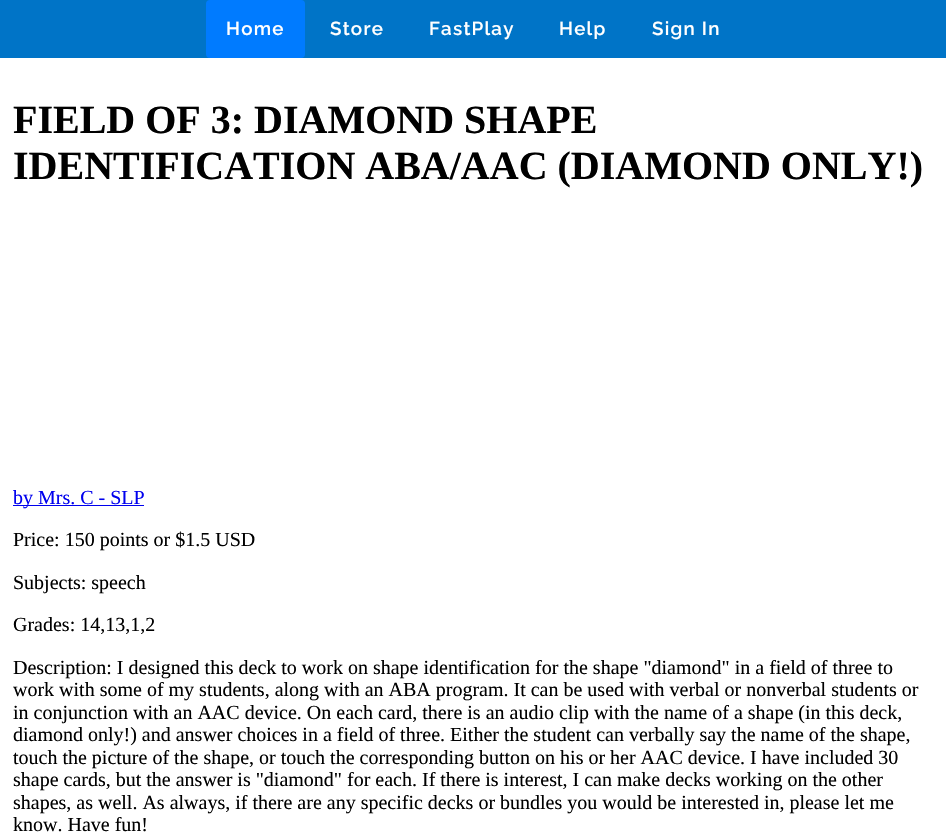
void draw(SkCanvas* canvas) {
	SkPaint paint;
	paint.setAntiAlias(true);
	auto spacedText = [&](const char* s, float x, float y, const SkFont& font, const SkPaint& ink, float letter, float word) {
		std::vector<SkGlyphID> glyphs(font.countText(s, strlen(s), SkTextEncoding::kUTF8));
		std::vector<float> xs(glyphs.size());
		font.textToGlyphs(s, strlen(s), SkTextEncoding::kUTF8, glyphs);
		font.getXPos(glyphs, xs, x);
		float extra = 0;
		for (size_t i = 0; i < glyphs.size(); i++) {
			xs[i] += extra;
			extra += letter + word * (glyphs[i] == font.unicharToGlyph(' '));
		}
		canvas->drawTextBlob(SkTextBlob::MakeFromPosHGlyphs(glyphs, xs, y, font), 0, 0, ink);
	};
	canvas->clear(0xffffffff);
	paint.setColor(0xff0074c7);
	canvas->drawRect(SkRect::MakeXYWH(0, 0, 946, 58), paint);
	paint.setColor(0xff007bff);
	canvas->drawRoundRect(SkRect::MakeXYWH(206, 0, 99, 58), 4, 4, paint);
	SkFont f1(fontMgr->matchFamilyStyle("Raleway", SkFontStyle(600, SkFontStyle::kNormal_Width, SkFontStyle::kUpright_Slant)), 18.75);
	f1.setSubpixel(true);
	paint.setColor(0xffffffff);
	spacedText("Home", 226, 35, f1, paint, 1.25, 0);
	spacedText("Store", 330, 35, f1, paint, 1.25, 0);
	spacedText("FastPlay", 429, 35, f1, paint, 1.25, 0);
	spacedText("Help", 559, 35, f1, paint, 1.25, 0);
	spacedText("Sign In", 652, 35, f1, paint, 1.25, 0);
	SkFont f2(fontMgr->matchFamilyStyle("Liberation Serif", SkFontStyle::Bold()), 40);
	f2.setSubpixel(true);
	paint.setColor(0xff000000);
	canvas->drawString("FIELD OF 3: DIAMOND SHAPE", 13, 133, f2, paint);
	canvas->drawString("IDENTIFICATION ABA/AAC (DIAMOND ONLY!)", 13, 179, f2, paint);
	paint.setColor(0xff0000ee);
	canvas->drawRect(SkRect::MakeXYWH(13, 505, 131, 1), paint);
	SkFont f3(fontMgr->matchFamilyStyle("Liberation Serif", SkFontStyle::Normal()), 20);
	f3.setSubpixel(true);
	canvas->drawString("by Mrs. C - SLP", 13, 504, f3, paint);
	paint.setColor(0xff000000);
	canvas->drawString("Price: 150 points or $1.5 USD", 13, 546, f3, paint);
	canvas->drawString("Subjects: speech", 13, 589, f3, paint);
	canvas->drawString("Grades: 14,13,1,2", 13, 631, f3, paint);
	canvas->drawString("Description: I designed this deck to work on shape identification for the shape \"diamond\" in a field of three to", 13, 674, f3, paint);
	canvas->drawString("work with some of my students, along with an ABA program. It can be used with verbal or nonverbal students or", 13, 696, f3, paint);
	canvas->drawString("in conjunction with an AAC device. On each card, there is an audio clip with the name of a shape (in this deck,", 13, 719, f3, paint);
	canvas->drawString("diamond only!) and answer choices in a field of three. Either the student can verbally say the name of the shape,", 13, 741, f3, paint);
	canvas->drawString("touch the picture of the shape, or touch the corresponding button on his or her AAC device. I have included 30", 13, 764, f3, paint);
	canvas->drawString("shape cards, but the answer is \"diamond\" for each. If there is interest, I can make decks working on the other", 13, 786, f3, paint);
	canvas->drawString("shapes, as well. As always, if there are any specific decks or bundles you would be interested in, please let me", 13, 809, f3, paint);
	canvas->drawString("know. Have fun!", 13, 831, f3, paint);
}
